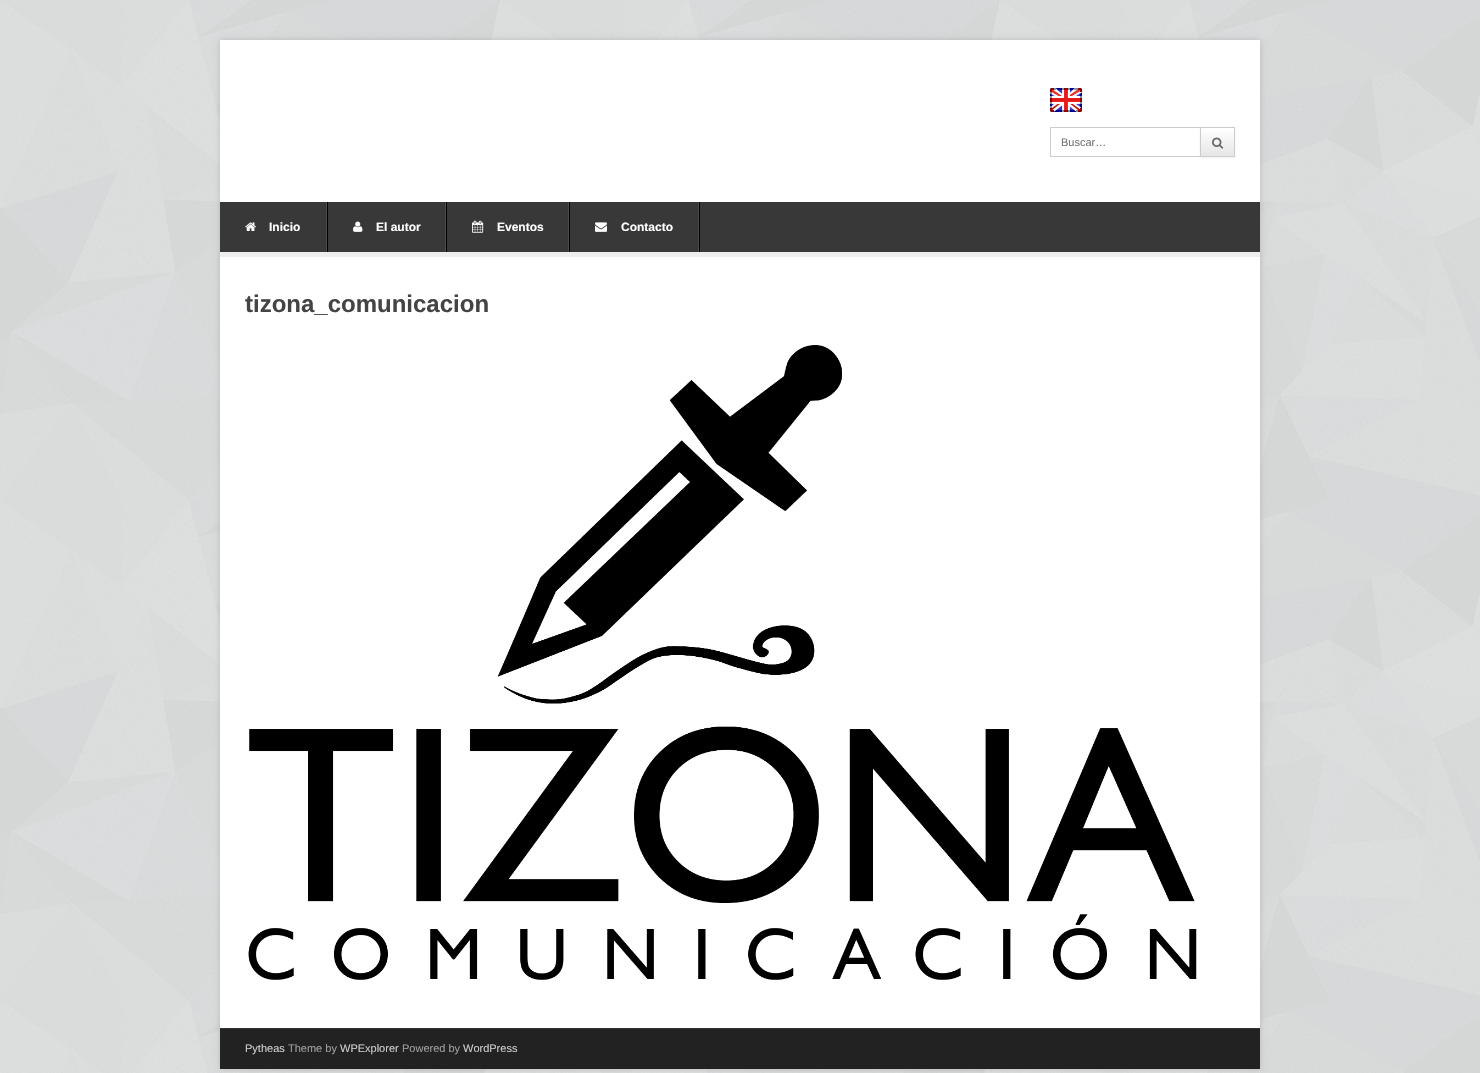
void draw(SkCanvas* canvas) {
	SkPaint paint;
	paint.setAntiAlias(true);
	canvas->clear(0xffffffff);
	canvas->drawImageRect(SkImages::DeferredFromEncodedData(SkData::MakeFromFileName("img1.png")), SkRect::MakeXYWH(0, 0, 1480, 1073), SkSamplingOptions());
	paint.setColor(0x26000000);
	paint.setMaskFilter(SkMaskFilter::MakeBlur(kNormal_SkBlurStyle, 3));
	canvas->drawRect(SkRect::MakeXYWH(220, 40, 1040, 1029), paint);
	paint.setMaskFilter(nullptr);
	paint.setColor(0xffffffff);
	canvas->drawRect(SkRect::MakeXYWH(220, 40, 1040, 988), paint);
	canvas->drawImageRect(SkImages::DeferredFromEncodedData(SkData::MakeFromFileName("img2.png")), SkRect::MakeXYWH(1050, 88, 32, 24), SkSamplingOptions());
	paint.setColor(0xffcccccc);
	canvas->drawRect(SkRect::MakeXYWH(1050, 127, 150, 1), paint);
	canvas->drawRect(SkRect::MakeXYWH(1050, 156, 150, 1), paint);
	canvas->drawRect(SkRect::MakeXYWH(1050, 127, 1, 30), paint);
	SkFont f1(fontMgr->matchFamilyStyle("Liberation Sans", SkFontStyle::Normal()), 11);
	f1.setSubpixel(true);
	paint.setColor(0xff757575);
	canvas->drawString("Buscar…", 1061, 146, f1, paint);
	paint.setColor(0x0d000000);
	paint.setMaskFilter(SkMaskFilter::MakeBlur(kNormal_SkBlurStyle, 1));
	canvas->drawRect(SkRect::MakeXYWH(1200, 128, 35, 30), paint);
	paint.setMaskFilter(nullptr);
	{
		const SkColor colors[] = {0xffffffff, 0xffe6e6e6};
		const float stops[] = {0, 1};
		const SkPoint ends[] = {{1218, 128}, {1218, 156}};
		paint.setShader(SkGradientShader::MakeLinear(ends, colors, stops, 2, SkTileMode::kClamp));
		paint.setAlpha(255);
	}
	canvas->drawRect(SkRect::MakeXYWH(1201, 128, 33, 28), paint);
	paint.setStroke(true);
	paint.setStrokeWidth(1);
	paint.setShader(nullptr);
	paint.setColor(0xffcccccc);
	canvas->drawRect(SkRect::MakeXYWH(1200.5, 127.5, 34, 29), paint);
	canvas->drawImageRect(SkImages::DeferredFromEncodedData(SkData::MakeFromFileName("img3.png")), SkRect::MakeXYWH(1212, 137, 12, 12), SkSamplingOptions());
	paint.setStroke(false);
	paint.setColor(0xff383838);
	canvas->drawRect(SkRect::MakeXYWH(220, 202, 1040, 50), paint);
	paint.setColor(0xffeeeeee);
	canvas->drawRect(SkRect::MakeXYWH(220, 252, 1040, 5), paint);
	paint.setColor(0xff000000);
	canvas->drawRect(SkRect::MakeXYWH(699, 202, 1, 50), paint);
	paint.setColor(0xff4c4c4c);
	canvas->drawRect(SkRect::MakeXYWH(326, 202, 1, 50), paint);
	canvas->drawImageRect(SkImages::DeferredFromEncodedData(SkData::MakeFromFileName("img4.png")), SkRect::MakeXYWH(245, 222, 11, 9), SkSamplingOptions());
	SkFont f2(fontMgr->matchFamilyStyle("Liberation Sans", SkFontStyle::Bold()), 12);
	f2.setSubpixel(true);
	paint.setColor(0xffffffff);
	canvas->drawString("Inicio", 269, 231, f2, paint);
	paint.setColor(0xff4c4c4c);
	canvas->drawRect(SkRect::MakeXYWH(445, 202, 1, 50), paint);
	paint.setColor(0xff000000);
	canvas->drawRect(SkRect::MakeXYWH(327, 202, 1, 50), paint);
	canvas->drawImageRect(SkImages::DeferredFromEncodedData(SkData::MakeFromFileName("img5.png")), SkRect::MakeXYWH(353, 221, 10, 11), SkSamplingOptions());
	paint.setColor(0xffffffff);
	canvas->drawString("El autor", 376, 231, f2, paint);
	paint.setColor(0xff4c4c4c);
	canvas->drawRect(SkRect::MakeXYWH(568, 202, 1, 50), paint);
	paint.setColor(0xff000000);
	canvas->drawRect(SkRect::MakeXYWH(446, 202, 1, 50), paint);
	canvas->drawImageRect(SkImages::DeferredFromEncodedData(SkData::MakeFromFileName("img6.png")), SkRect::MakeXYWH(472, 220, 12, 13), SkSamplingOptions());
	paint.setColor(0xffffffff);
	canvas->drawString("Eventos", 497, 231, f2, paint);
	paint.setColor(0xff4c4c4c);
	canvas->drawRect(SkRect::MakeXYWH(698, 202, 1, 50), paint);
	paint.setColor(0xff000000);
	canvas->drawRect(SkRect::MakeXYWH(569, 202, 1, 50), paint);
	canvas->drawImageRect(SkImages::DeferredFromEncodedData(SkData::MakeFromFileName("img7.png")), SkRect::MakeXYWH(595, 222, 12, 10), SkSamplingOptions());
	paint.setColor(0xffffffff);
	canvas->drawString("Contacto", 621, 231, f2, paint);
	SkFont f3(fontMgr->matchFamilyStyle("Liberation Sans", SkFontStyle::Bold()), 24);
	f3.setSubpixel(true);
	paint.setColor(0xff444444);
	canvas->drawString("tizona_comunicacion", 245, 312, f3, paint);
	canvas->drawImageRect(SkImages::DeferredFromEncodedData(SkData::MakeFromFileName("img8.png")), SkRect::MakeXYWH(248, 345, 949, 635), SkSamplingOptions());
	paint.setColor(0xff222222);
	canvas->drawRect(SkRect::MakeXYWH(220, 1029, 1040, 40), paint);
	paint.setColor(0xff333333);
	canvas->drawRect(SkRect::MakeXYWH(220, 1028, 1040, 1), paint);
	paint.setColor(0xffcccccc);
	canvas->drawString("Pytheas", 245, 1052, f1, paint);
	paint.setColor(0xff9f9f9f);
	canvas->drawString("Theme by", 288, 1052, f1, paint);
	paint.setColor(0xffcccccc);
	canvas->drawString("WPExplorer", 340, 1052, f1, paint);
	paint.setColor(0xff9f9f9f);
	canvas->drawString("Powered by", 402, 1052, f1, paint);
	paint.setColor(0xffcccccc);
	canvas->drawString("WordPress", 463, 1052, f1, paint);
}
